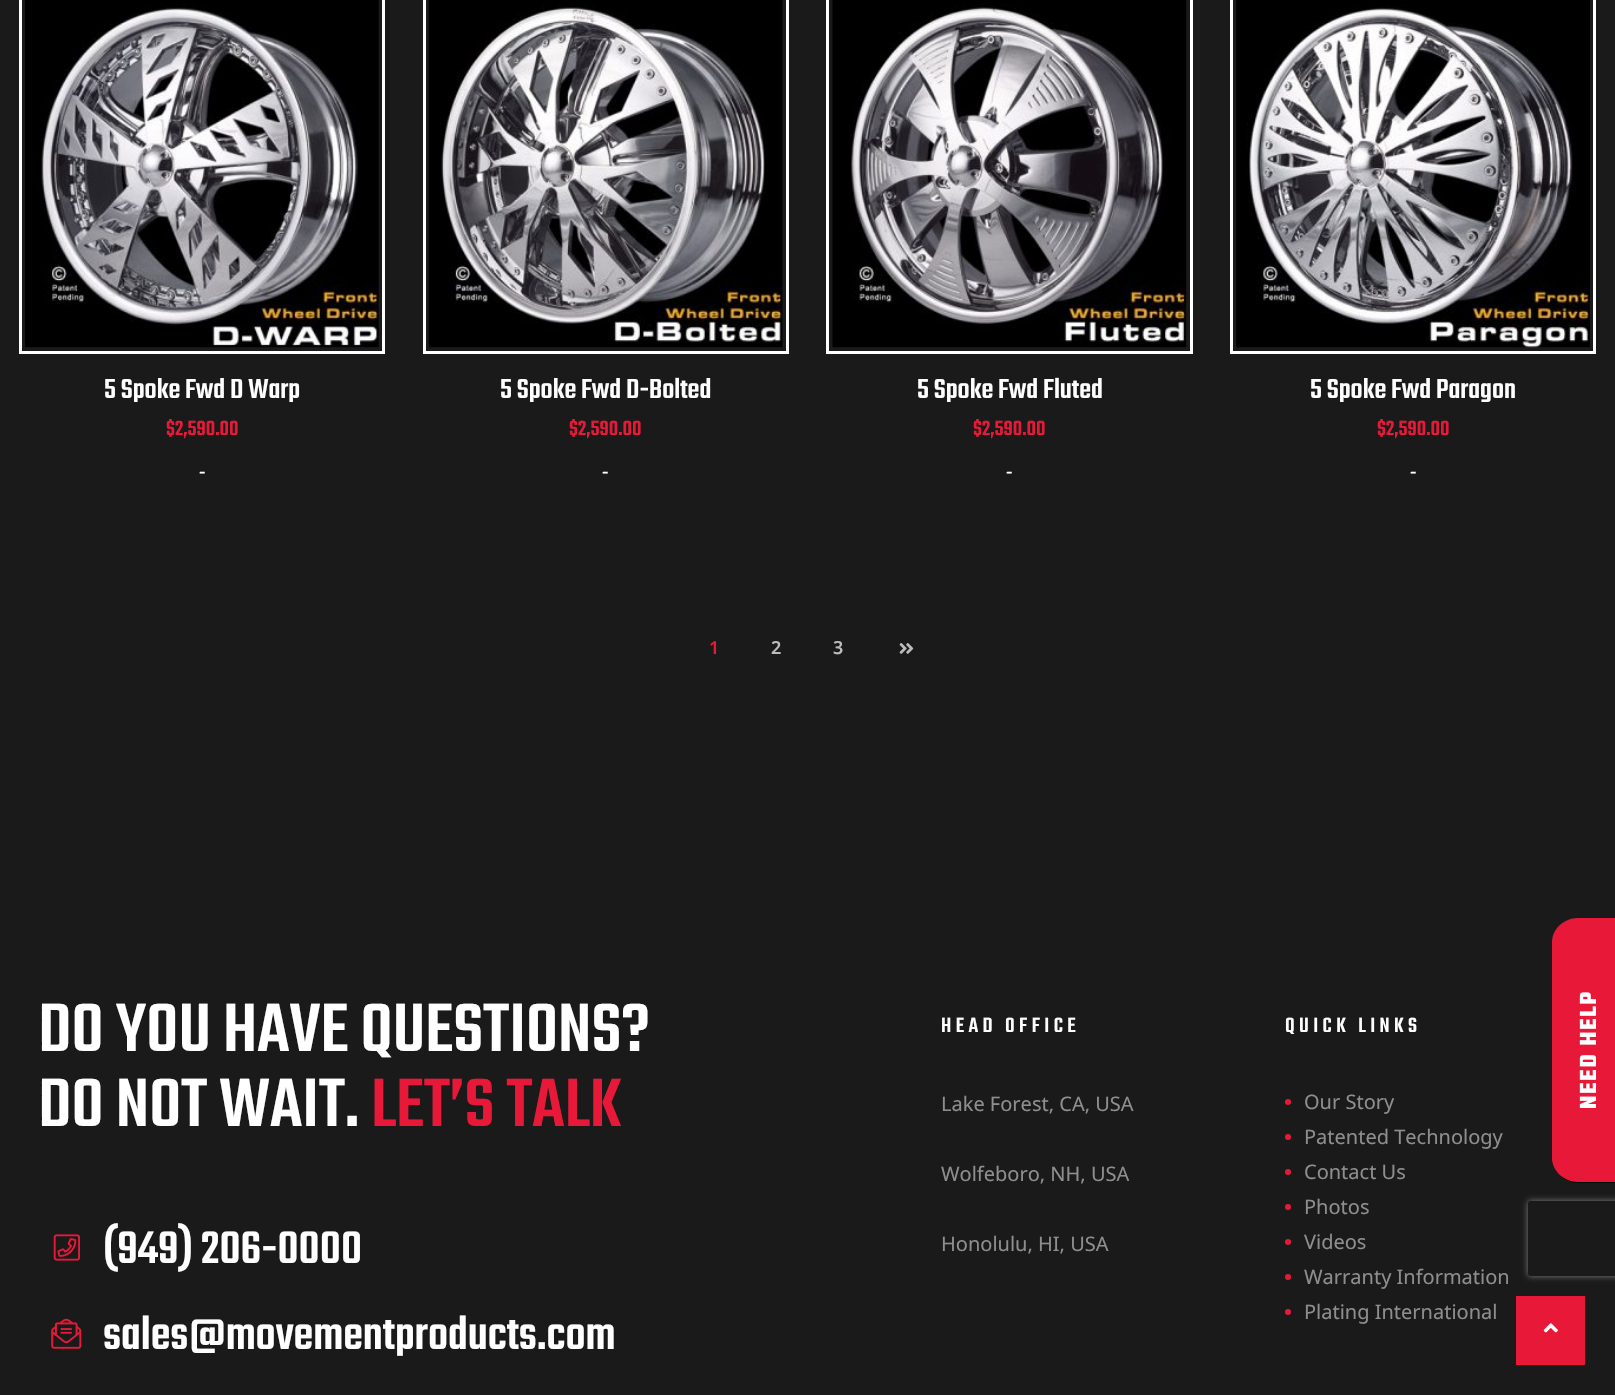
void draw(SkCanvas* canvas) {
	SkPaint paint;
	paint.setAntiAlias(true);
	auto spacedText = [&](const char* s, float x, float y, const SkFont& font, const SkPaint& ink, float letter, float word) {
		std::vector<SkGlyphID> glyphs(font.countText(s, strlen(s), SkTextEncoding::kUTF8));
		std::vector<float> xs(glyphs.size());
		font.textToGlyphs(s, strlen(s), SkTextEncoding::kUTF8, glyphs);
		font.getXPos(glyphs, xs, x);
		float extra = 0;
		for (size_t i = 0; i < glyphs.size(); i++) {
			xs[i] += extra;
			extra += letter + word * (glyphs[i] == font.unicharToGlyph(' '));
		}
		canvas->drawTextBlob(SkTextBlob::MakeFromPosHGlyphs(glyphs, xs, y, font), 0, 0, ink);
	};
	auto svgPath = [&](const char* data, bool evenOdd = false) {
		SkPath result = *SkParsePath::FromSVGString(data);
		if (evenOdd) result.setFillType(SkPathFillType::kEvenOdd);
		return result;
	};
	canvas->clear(0xff1a1a1a);
	paint.setStroke(true);
	paint.setStrokeWidth(3);
	paint.setColor(0xffffffff);
	canvas->drawRect(SkRect::MakeXYWH(20.5, -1.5, 363, 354), paint);
	canvas->drawImageRect(SkImages::DeferredFromEncodedData(SkData::MakeFromFileName("img1.png")), SkRect::MakeXYWH(25, 0, 354, 348), SkSamplingOptions());
	SkFont f1(fontMgr->matchFamilyStyle("Teko", SkFontStyle(500, SkFontStyle::kNormal_Width, SkFontStyle::kUpright_Slant)), 30);
	f1.setSubpixel(true);
	paint.setStroke(false);
	canvas->drawString("5 Spoke Fwd D Warp", 104, 398, f1, paint);
	SkFont f2(fontMgr->matchFamilyStyle("Teko", SkFontStyle(500, SkFontStyle::kNormal_Width, SkFontStyle::kUpright_Slant)), 22.5);
	f2.setSubpixel(true);
	paint.setColor(0xffe81938);
	canvas->drawString("$2,590.00", 166, 435, f2, paint);
	SkFont f3(fontMgr->matchFamilyStyle("Noto Sans", SkFontStyle::Normal()), 20);
	f3.setSubpixel(true);
	paint.setColor(0xffffffff);
	canvas->drawString("-", 199, 478, f3, paint);
	paint.setStroke(true);
	canvas->drawRect(SkRect::MakeXYWH(424.5, -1.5, 363, 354), paint);
	canvas->drawImageRect(SkImages::DeferredFromEncodedData(SkData::MakeFromFileName("img2.png")), SkRect::MakeXYWH(428, 0, 355, 348), SkSamplingOptions());
	paint.setStroke(false);
	canvas->drawString("5 Spoke Fwd D-Bolted", 500, 398, f1, paint);
	paint.setColor(0xffe81938);
	canvas->drawString("$2,590.00", 569, 435, f2, paint);
	paint.setColor(0xffffffff);
	canvas->drawString("-", 602, 478, f3, paint);
	paint.setStroke(true);
	canvas->drawRect(SkRect::MakeXYWH(827.5, -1.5, 364, 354), paint);
	canvas->drawImageRect(SkImages::DeferredFromEncodedData(SkData::MakeFromFileName("img3.png")), SkRect::MakeXYWH(832, 0, 355, 348), SkSamplingOptions());
	paint.setStroke(false);
	canvas->drawString("5 Spoke Fwd Fluted", 917, 398, f1, paint);
	paint.setColor(0xffe81938);
	canvas->drawString("$2,590.00", 973, 435, f2, paint);
	paint.setColor(0xffffffff);
	canvas->drawString("-", 1006, 478, f3, paint);
	paint.setStroke(true);
	canvas->drawRect(SkRect::MakeXYWH(1231.5, -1.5, 363, 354), paint);
	canvas->drawImageRect(SkImages::DeferredFromEncodedData(SkData::MakeFromFileName("img4.png")), SkRect::MakeXYWH(1236, 0, 354, 348), SkSamplingOptions());
	paint.setStroke(false);
	canvas->drawString("5 Spoke Fwd Paragon", 1310, 398, f1, paint);
	paint.setColor(0xffe81938);
	canvas->drawString("$2,590.00", 1377, 435, f2, paint);
	paint.setColor(0xffffffff);
	canvas->drawString("-", 1410, 478, f3, paint);
	SkFont f4(fontMgr->matchFamilyStyle("Noto Sans", SkFontStyle(600, SkFontStyle::kNormal_Width, SkFontStyle::kUpright_Slant)), 18);
	f4.setSubpixel(true);
	paint.setColor(0xffe81938);
	canvas->drawString("1", 709, 654, f4, paint);
	paint.setColor(0xffbcbcbc);
	canvas->drawString("2", 771, 654, f4, paint);
	canvas->drawString("3", 833, 654, f4, paint);
	canvas->drawImageRect(SkImages::DeferredFromEncodedData(SkData::MakeFromFileName("img5.png")), SkRect::MakeXYWH(899, 643, 15, 11), SkSamplingOptions());
	paint.setColor(0xff000000);
	canvas->drawPath(svgPath("M1578 919H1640V1183H1578C1564 1183 1553 1172 1553 1158V944C1553 930 1564 919 1578 919Z"), paint);
	paint.setColor(0xffe81938);
	canvas->drawPath(svgPath("M1552 1158V942C1552 929 1564 918 1578 918H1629V1182H1578C1564 1182 1552 1171 1552 1158Z"), paint);
	SkFont f5(fontMgr->matchFamilyStyle("Teko", SkFontStyle::Bold()), 25);
	f5.setSubpixel(true);
	paint.setColor(0xffffffff);
	canvas->save();
	canvas->rotate(-90, 1596, 1109);
	spacedText("NEED HELP", 1596, 1109, f5, paint, 1.9, 0);
	canvas->restore();
	SkFont f6(fontMgr->matchFamilyStyle("Teko", SkFontStyle(500, SkFontStyle::kNormal_Width, SkFontStyle::kUpright_Slant)), 75);
	f6.setSubpixel(true);
	canvas->drawString("DO YOU HAVE QUESTIONS?", 38, 1051, f6, paint);
	canvas->drawString("DO NOT WAIT.", 38, 1126, f6, paint);
	paint.setColor(0xffe81938);
	canvas->drawString("LET’S TALK", 371, 1126, f6, paint);
	canvas->drawImageRect(SkImages::DeferredFromEncodedData(SkData::MakeFromFileName("img6.png")), SkRect::MakeXYWH(53, 1234, 27, 27), SkSamplingOptions());
	SkFont f7(fontMgr->matchFamilyStyle("Teko", SkFontStyle(500, SkFontStyle::kNormal_Width, SkFontStyle::kUpright_Slant)), 50);
	f7.setSubpixel(true);
	paint.setColor(0xffffffff);
	canvas->drawString("(949) 206-0000", 103, 1263, f7, paint);
	canvas->drawImageRect(SkImages::DeferredFromEncodedData(SkData::MakeFromFileName("img7.png")), SkRect::MakeXYWH(51, 1318, 31, 31), SkSamplingOptions());
	canvas->drawString("sales@movementproducts.com", 103, 1349, f7, paint);
	spacedText("HEAD OFFICE", 941, 1032, f2, paint, 4.4, 0);
	paint.setColor(0xff8e8e8e);
	canvas->drawString("Lake Forest, CA, USA", 941, 1111, f3, paint);
	canvas->drawString("Wolfeboro, NH, USA", 941, 1181, f3, paint);
	canvas->drawString("Honolulu, HI, USA", 941, 1251, f3, paint);
	paint.setColor(0xffffffff);
	spacedText("QUICK LINKS", 1285, 1032, f2, paint, 4.4, 0);
	paint.setColor(0xffe81938);
	canvas->drawCircle(1288, 1102, 3, paint);
	paint.setColor(0xff8e8e8e);
	canvas->drawString("Our Story", 1304, 1109, f3, paint);
	paint.setColor(0xffe81938);
	canvas->drawCircle(1288, 1137, 3, paint);
	paint.setColor(0xff8e8e8e);
	canvas->drawString("Patented Technology", 1304, 1144, f3, paint);
	paint.setColor(0xffe81938);
	canvas->drawCircle(1288, 1172, 3, paint);
	paint.setColor(0xff8e8e8e);
	canvas->drawString("Contact Us", 1304, 1179, f3, paint);
	paint.setColor(0xffe81938);
	canvas->drawCircle(1288, 1207, 3, paint);
	paint.setColor(0xff8e8e8e);
	canvas->drawString("Photos", 1304, 1214, f3, paint);
	paint.setColor(0xffe81938);
	canvas->drawCircle(1288, 1242, 3, paint);
	paint.setColor(0xff8e8e8e);
	canvas->drawString("Videos", 1304, 1249, f3, paint);
	paint.setColor(0xffe81938);
	canvas->drawCircle(1288, 1277, 3, paint);
	paint.setColor(0xff8e8e8e);
	canvas->drawString("Warranty Information", 1304, 1284, f3, paint);
	paint.setColor(0xffe81938);
	canvas->drawCircle(1288, 1312, 3, paint);
	paint.setColor(0xff8e8e8e);
	canvas->drawString("Plating International", 1304, 1319, f3, paint);
	canvas->save();
	canvas->clipPath(svgPath("M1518 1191H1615V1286H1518ZM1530.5 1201H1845.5C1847 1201 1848 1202 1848 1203.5V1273.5C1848 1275 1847 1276 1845.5 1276H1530.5C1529 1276 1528 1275 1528 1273.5V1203.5C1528 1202 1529 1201 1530.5 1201Z", true), true);
	paint.setColor(0xff808080);
	paint.setMaskFilter(SkMaskFilter::MakeBlur(kNormal_SkBlurStyle, 3));
	canvas->drawRoundRect(SkRect::MakeXYWH(1528, 1201, 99, 75), 2.5, 2.5, paint);
	paint.setMaskFilter(nullptr);
	canvas->restore();
	paint.setColor(0xffe81938);
	canvas->drawRect(SkRect::MakeXYWH(1516, 1296, 69, 69), paint);
	canvas->drawImageRect(SkImages::DeferredFromEncodedData(SkData::MakeFromFileName("img8.png")), SkRect::MakeXYWH(1543, 1323, 15, 10), SkSamplingOptions());
}
